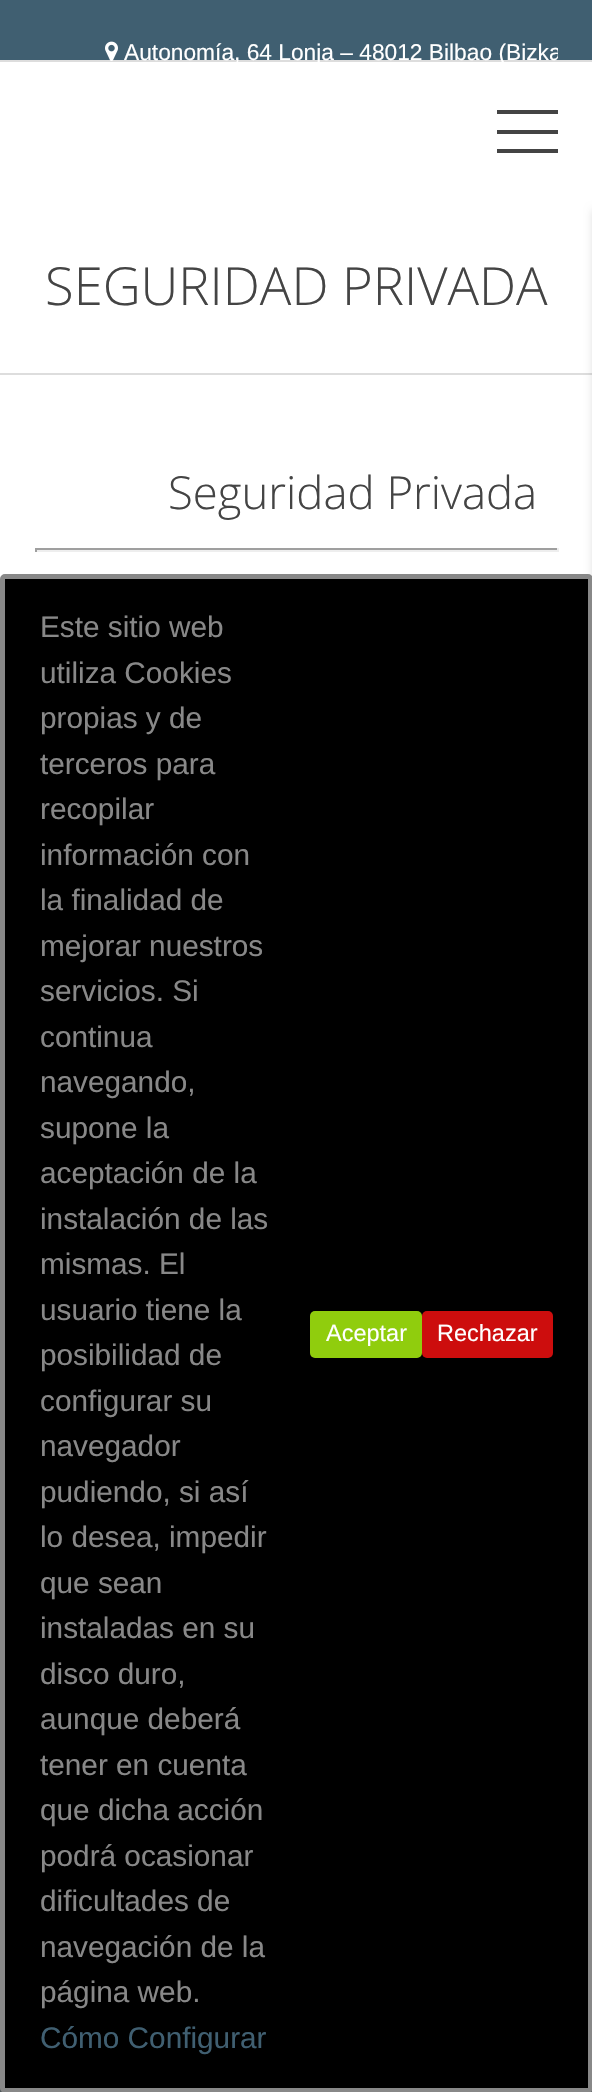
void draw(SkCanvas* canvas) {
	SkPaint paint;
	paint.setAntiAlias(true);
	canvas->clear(0xffffffff);
	paint.setColor(0xff405f71);
	canvas->drawRect(SkRect::MakeXYWH(0, 0, 592, 60), paint);
	paint.setColor(0xffdddddd);
	canvas->drawRect(SkRect::MakeXYWH(0, 60, 592, 2), paint);
	canvas->drawImageRect(SkImages::DeferredFromEncodedData(SkData::MakeFromFileName("img1.png")), SkRect::MakeXYWH(105, 41, 13, 20), SkSamplingOptions());
	canvas->save();
	canvas->clipRect(SkRect::MakeXYWH(35, 0, 523, 105));
	SkFont f1(fontMgr->matchFamilyStyle("Liberation Sans", SkFontStyle::Normal()), 22.75);
	f1.setSubpixel(true);
	paint.setColor(0xffffffff);
	canvas->drawString("Autonomía, 64 Lonja – 48012 Bilbao (Bizka", 124, 60, f1, paint);
	canvas->restore();
	paint.setColor(0xff444444);
	canvas->drawRect(SkRect::MakeXYWH(497, 130, 61, 4), paint);
	canvas->drawRect(SkRect::MakeXYWH(497, 110, 61, 4), paint);
	canvas->drawRect(SkRect::MakeXYWH(497, 149, 61, 4), paint);
	paint.setColor(0xffdddddd);
	canvas->drawRect(SkRect::MakeXYWH(0, 373, 592, 2), paint);
	paint.setColor(0xff4f5759);
	canvas->drawRect(SkRect::MakeXYWH(0, 2088, 592, 4), paint);
	paint.setColor(0x26000000);
	paint.setMaskFilter(SkMaskFilter::MakeBlur(kNormal_SkBlurStyle, 4.5));
	canvas->drawRect(SkRect::MakeXYWH(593, 210, 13, 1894), paint);
	paint.setMaskFilter(nullptr);
	SkFont f2(fontMgr->matchFamilyStyle("Open Sans", SkFontStyle(300, SkFontStyle::kNormal_Width, SkFontStyle::kUpright_Slant)), 52.5);
	f2.setSubpixel(true);
	paint.setColor(0xff444444);
	canvas->drawString("SEGURIDAD PRIVADA", 45, 305, f2, paint);
	SkFont f3(fontMgr->matchFamilyStyle("Open Sans", SkFontStyle(300, SkFontStyle::kNormal_Width, SkFontStyle::kUpright_Slant)), 45.5);
	f3.setSubpixel(true);
	canvas->drawString("Seguridad Privada", 168, 509, f3, paint);
	paint.setColor(0xff9f9f9f);
	canvas->drawRect(SkRect::MakeXYWH(35, 548, 523, 2), paint);
	paint.setColor(0xffeeeeee);
	canvas->drawRect(SkRect::MakeXYWH(557, 548, 2, 4), paint);
	canvas->drawRect(SkRect::MakeXYWH(35, 550, 523, 2), paint);
	paint.setColor(0xff9f9f9f);
	canvas->drawRect(SkRect::MakeXYWH(35, 548, 2, 4), paint);
	paint.setColor(0xff000000);
	canvas->drawRoundRect(SkRect::MakeXYWH(2.5, 576.5, 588, 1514), 2.5, 2.5, paint);
	paint.setStroke(true);
	paint.setStrokeWidth(5);
	paint.setColor(0xff888888);
	canvas->drawRoundRect(SkRect::MakeXYWH(2.5, 576.5, 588, 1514), 2.5, 2.5, paint);
	SkFont f4(fontMgr->matchFamilyStyle("Liberation Sans", SkFontStyle::Normal()), 29.75);
	f4.setSubpixel(true);
	paint.setStroke(false);
	canvas->drawString("Este sitio web", 40, 637, f4, paint);
	canvas->drawString("utiliza Cookies", 40, 683, f4, paint);
	canvas->drawString("propias y de", 40, 728, f4, paint);
	canvas->drawString("terceros para", 40, 774, f4, paint);
	canvas->drawString("recopilar", 40, 819, f4, paint);
	canvas->drawString("información con", 40, 865, f4, paint);
	canvas->drawString("la finalidad de", 40, 910, f4, paint);
	canvas->drawString("mejorar nuestros", 40, 956, f4, paint);
	canvas->drawString("servicios. Si", 40, 1001, f4, paint);
	canvas->drawString("continua", 40, 1047, f4, paint);
	canvas->drawString("navegando,", 40, 1092, f4, paint);
	canvas->drawString("supone la", 40, 1138, f4, paint);
	canvas->drawString("aceptación de la", 40, 1183, f4, paint);
	canvas->drawString("instalación de las", 40, 1229, f4, paint);
	canvas->drawString("mismas. El", 40, 1274, f4, paint);
	canvas->drawString("usuario tiene la", 40, 1320, f4, paint);
	canvas->drawString("posibilidad de", 40, 1365, f4, paint);
	canvas->drawString("configurar su", 40, 1411, f4, paint);
	canvas->drawString("navegador", 40, 1456, f4, paint);
	canvas->drawString("pudiendo, si así", 40, 1502, f4, paint);
	canvas->drawString("lo desea, impedir", 40, 1547, f4, paint);
	canvas->drawString("que sean", 40, 1593, f4, paint);
	canvas->drawString("instaladas en su", 40, 1638, f4, paint);
	canvas->drawString("disco duro,", 40, 1684, f4, paint);
	canvas->drawString("aunque deberá", 40, 1729, f4, paint);
	canvas->drawString("tener en cuenta", 40, 1775, f4, paint);
	canvas->drawString("que dicha acción", 40, 1820, f4, paint);
	canvas->drawString("podrá ocasionar", 40, 1866, f4, paint);
	canvas->drawString("dificultades de", 40, 1911, f4, paint);
	canvas->drawString("navegación de la", 40, 1957, f4, paint);
	canvas->drawString("página web.", 40, 2002, f4, paint);
	paint.setColor(0xff405f71);
	canvas->drawString("Cómo Configurar", 40, 2048, f4, paint);
	paint.setColor(0xff90cd0d);
	canvas->drawRoundRect(SkRect::MakeXYWH(310, 1311, 112, 47), 5, 5, paint);
	SkFont f5(fontMgr->matchFamilyStyle("Liberation Sans", SkFontStyle::Normal()), 23.5);
	f5.setSubpixel(true);
	paint.setColor(0xffffffff);
	canvas->drawString("Aceptar", 326, 1341, f5, paint);
	paint.setColor(0xffcd0d0d);
	canvas->drawRoundRect(SkRect::MakeXYWH(422, 1311, 131, 47), 5, 5, paint);
	paint.setColor(0xffffffff);
	canvas->drawString("Rechazar", 437, 1341, f5, paint);
}
